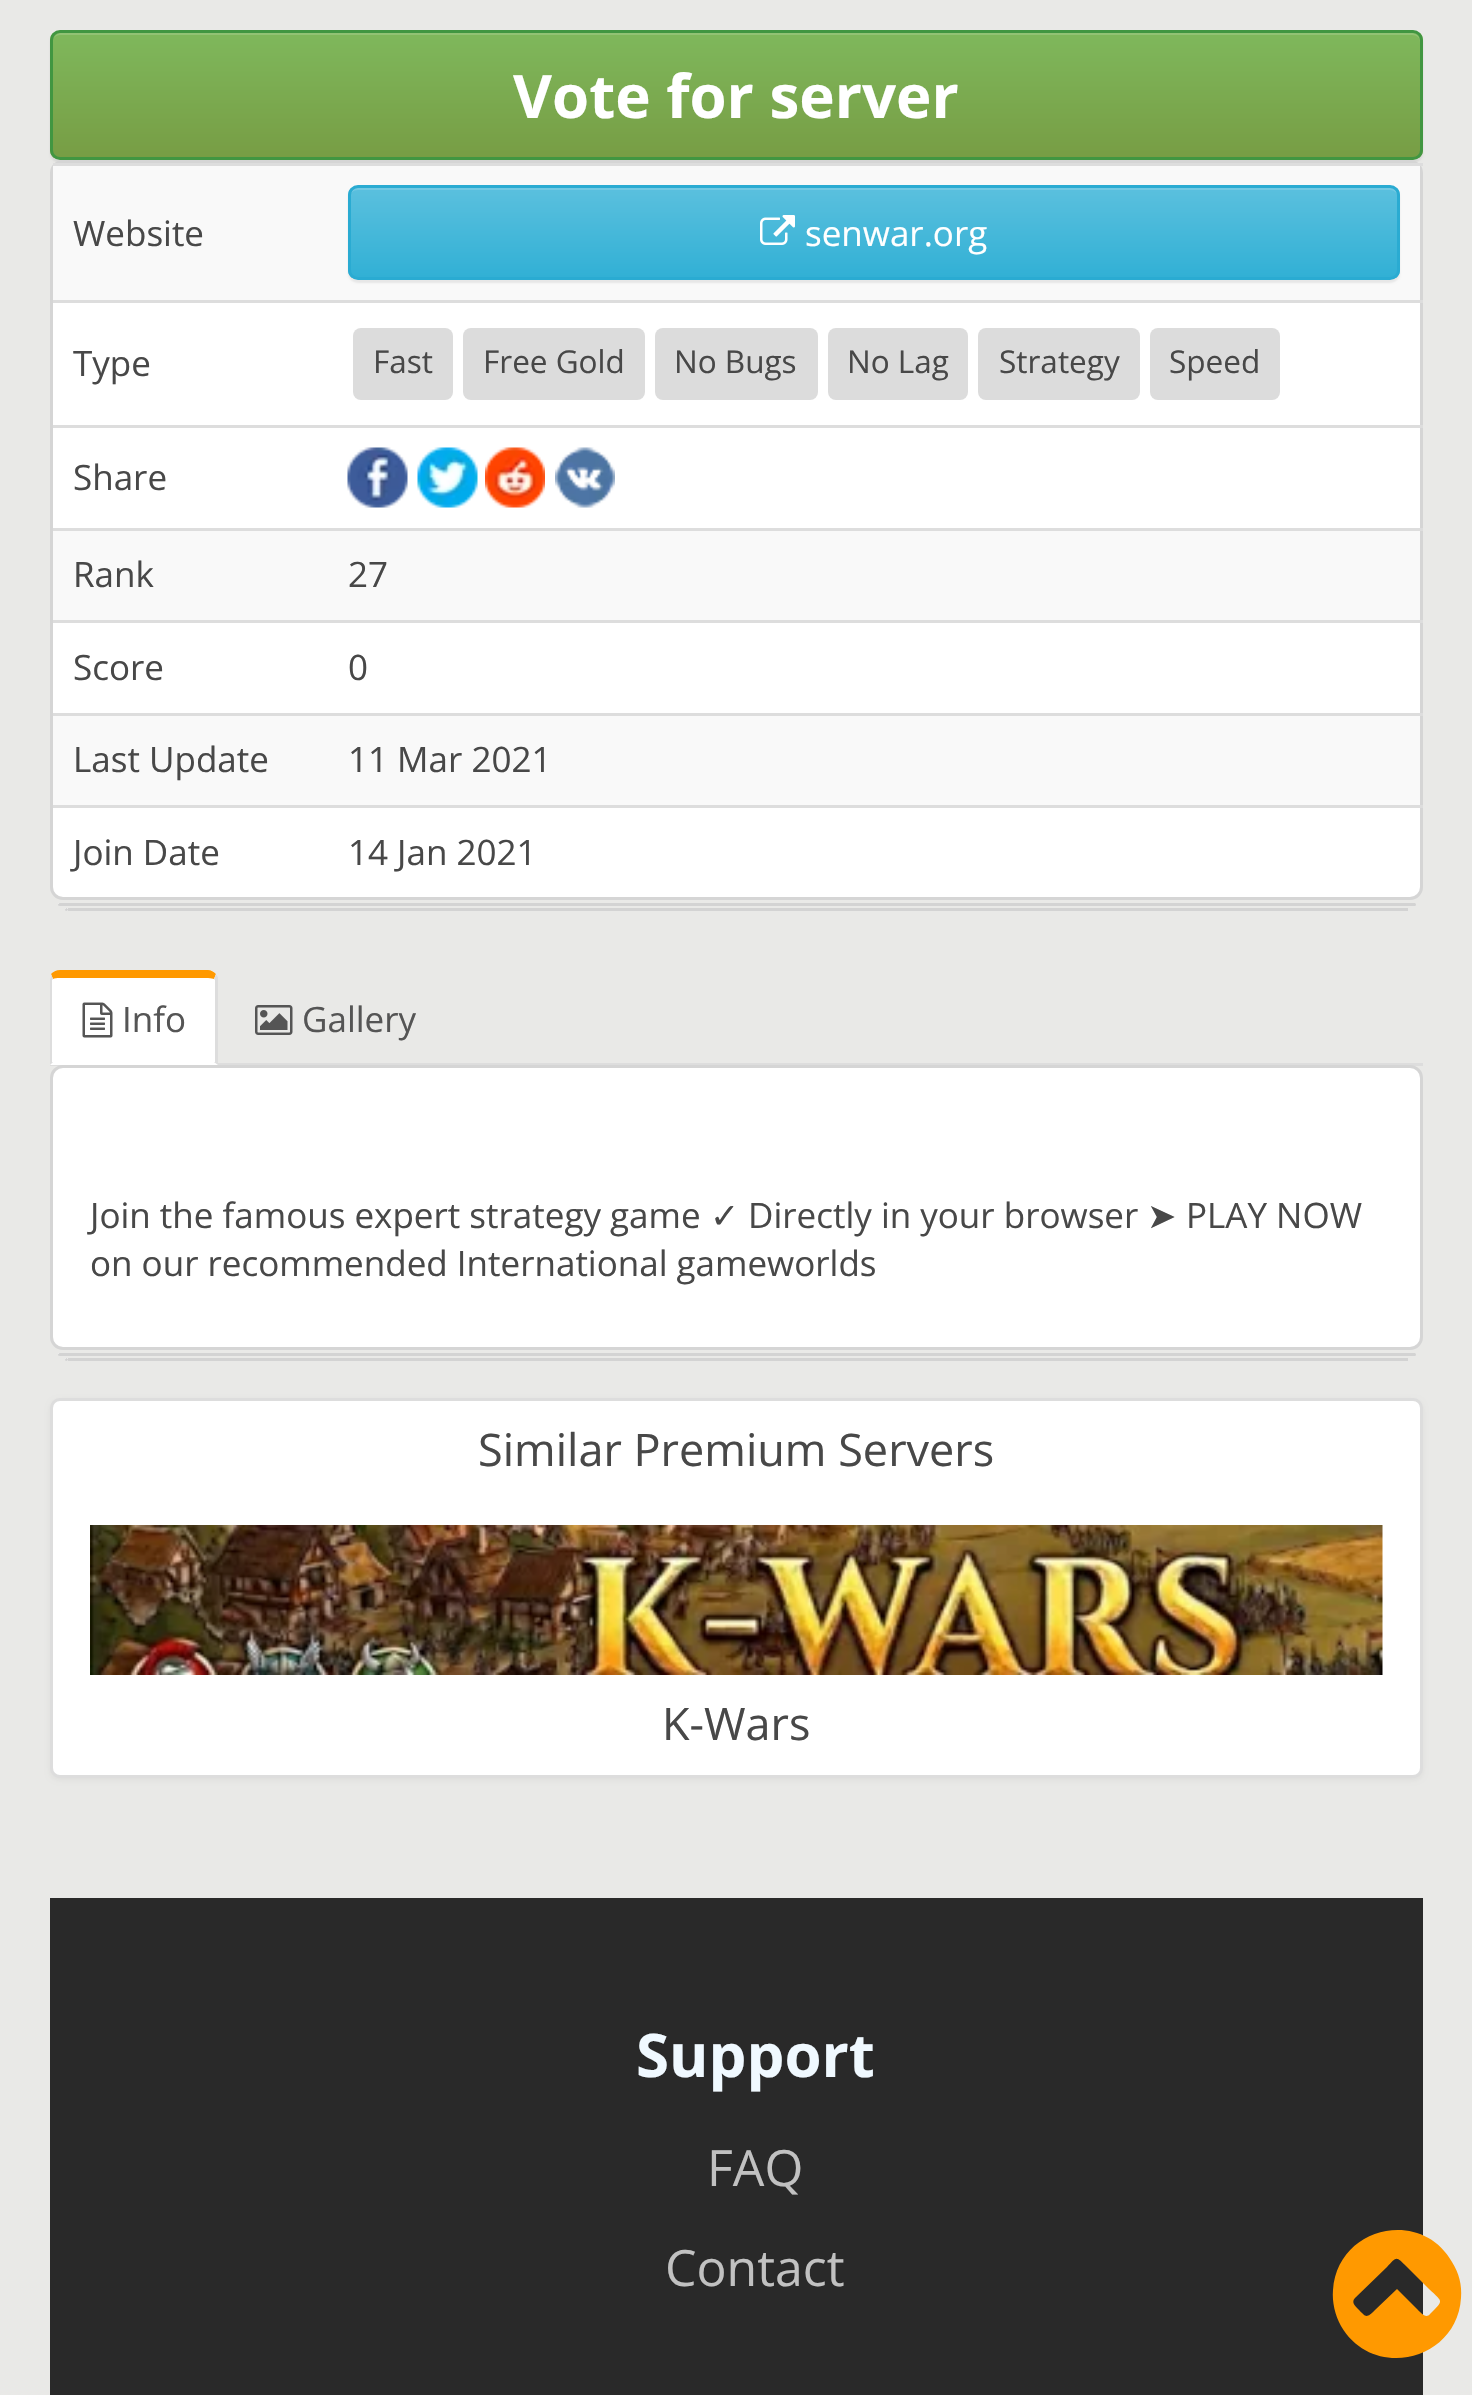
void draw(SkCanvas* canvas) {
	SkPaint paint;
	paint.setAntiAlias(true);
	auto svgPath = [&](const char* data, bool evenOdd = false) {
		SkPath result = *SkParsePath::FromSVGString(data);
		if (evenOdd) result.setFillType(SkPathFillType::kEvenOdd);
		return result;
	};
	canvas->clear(0xffe9e9e7);
	paint.setColor(0x12000000);
	paint.setMaskFilter(SkMaskFilter::MakeBlur(kNormal_SkBlurStyle, 1));
	canvas->drawRoundRect(SkRect::MakeXYWH(50, 33, 1373, 130), 10, 10, paint);
	paint.setMaskFilter(nullptr);
	canvas->save();
	canvas->clipPath(svgPath("M60 30H1413C1418.5 30 1423 34.5 1423 40V150C1423 155.5 1418.5 160 1413 160H60C54.5 160 50 155.5 50 150V40C50 34.5 54.5 30 60 30Z"), true);
	{
		const SkColor colors[] = {0xff7fb85c, 0xff779d44};
		const float stops[] = {0, 1};
		const SkPoint ends[] = {{736, 32}, {736, 158}};
		paint.setShader(SkGradientShader::MakeLinear(ends, colors, stops, 2, SkTileMode::kClamp));
		paint.setAlpha(255);
	}
	canvas->drawRect(SkRect::MakeXYWH(50, 33, 1373, 125), paint);
	canvas->restore();
	paint.setShader(nullptr);
	paint.setColor(0xff92c274);
	canvas->drawPath(svgPath("M60 35H1412C1417 35 1420 38 1420 42V41C1420 37 1416 33 1412 33H61C58 33 55 35 54 38C55 36 58 35 60 35Z"), paint);
	paint.setStroke(true);
	paint.setStrokeWidth(3);
	paint.setColor(0xff419641);
	canvas->drawRoundRect(SkRect::MakeXYWH(51.5, 31.5, 1370, 127), 8.5, 8.5, paint);
	SkFont f1(fontMgr->matchFamilyStyle("Open Sans", SkFontStyle::Bold()), 60);
	f1.setSubpixel(true);
	paint.setStroke(false);
	paint.setColor(0xffffffff);
	canvas->drawString("Vote for server", 513, 118, f1, paint);
	canvas->drawRoundRect(SkRect::MakeXYWH(51.5, 161.5, 1370, 737), 11.5, 11.5, paint);
	paint.setStroke(true);
	paint.setColor(0xffd5d5d5);
	canvas->drawRoundRect(SkRect::MakeXYWH(51.5, 161.5, 1370, 737), 11.5, 11.5, paint);
	paint.setStroke(false);
	paint.setColor(0xfff9f9f9);
	canvas->drawRect(SkRect::MakeXYWH(53, 166, 1367, 134), paint);
	SkFont f2(fontMgr->matchFamilyStyle("Open Sans", SkFontStyle::Normal()), 35);
	f2.setSubpixel(true);
	paint.setColor(0xff484848);
	canvas->drawString("Website", 73, 246, f2, paint);
	paint.setColor(0xffdddddd);
	canvas->drawRect(SkRect::MakeXYWH(53, 163, 1370, 3), paint);
	paint.setColor(0x12000000);
	paint.setMaskFilter(SkMaskFilter::MakeBlur(kNormal_SkBlurStyle, 1));
	canvas->drawRoundRect(SkRect::MakeXYWH(348, 188, 1052, 95), 10, 10, paint);
	paint.setMaskFilter(nullptr);
	canvas->save();
	canvas->clipPath(svgPath("M358 185H1390C1395.5 185 1400 189.5 1400 195V270C1400 275.5 1395.5 280 1390 280H358C352.5 280 348 275.5 348 270V195C348 189.5 352.5 185 358 185Z"), true);
	{
		const SkColor colors[] = {0xff5bc0de, 0xff31b0d5};
		const float stops[] = {0, 1};
		const SkPoint ends[] = {{874, 187}, {874, 278}};
		paint.setShader(SkGradientShader::MakeLinear(ends, colors, stops, 2, SkTileMode::kClamp));
		paint.setAlpha(255);
	}
	canvas->drawRect(SkRect::MakeXYWH(348, 188, 1052, 90), paint);
	canvas->restore();
	paint.setShader(nullptr);
	paint.setColor(0xff73c9e3);
	canvas->drawPath(svgPath("M358 190H1390C1394 190 1398 193 1398 198V196C1398 192 1394 188 1390 188H358C354 188 350 192 350 196V198C350 193 353 190 358 190Z"), paint);
	paint.setStroke(true);
	paint.setColor(0xff2aabd2);
	canvas->drawRoundRect(SkRect::MakeXYWH(349.5, 186.5, 1049, 92), 8.5, 8.5, paint);
	canvas->drawImageRect(SkImages::DeferredFromEncodedData(SkData::MakeFromFileName("img1.png")), SkRect::MakeXYWH(760, 215, 35, 30), SkSamplingOptions());
	paint.setStroke(false);
	paint.setColor(0xffffffff);
	canvas->drawString("senwar.org", 805, 246, f2, paint);
	paint.setColor(0xff484848);
	canvas->drawString("Type", 73, 376, f2, paint);
	paint.setColor(0xffdddddd);
	canvas->drawRect(SkRect::MakeXYWH(53, 300, 1370, 3), paint);
	paint.setColor(0xffdcdcdc);
	canvas->drawRoundRect(SkRect::MakeXYWH(353, 328, 100, 72), 8, 8, paint);
	SkFont f3(fontMgr->matchFamilyStyle("Open Sans", SkFontStyle::Normal()), 31.5);
	f3.setSubpixel(true);
	paint.setColor(0xff484848);
	canvas->drawString("Fast", 373, 373, f3, paint);
	paint.setColor(0xffdcdcdc);
	canvas->drawRoundRect(SkRect::MakeXYWH(463, 328, 182, 72), 8, 8, paint);
	paint.setColor(0xff484848);
	canvas->drawString("Free Gold", 483, 373, f3, paint);
	paint.setColor(0xffdcdcdc);
	canvas->drawRoundRect(SkRect::MakeXYWH(655, 328, 163, 72), 8, 8, paint);
	paint.setColor(0xff484848);
	canvas->drawString("No Bugs", 674, 373, f3, paint);
	paint.setColor(0xffdcdcdc);
	canvas->drawRoundRect(SkRect::MakeXYWH(828, 328, 140, 72), 8, 8, paint);
	paint.setColor(0xff484848);
	canvas->drawString("No Lag", 847, 373, f3, paint);
	paint.setColor(0xffdcdcdc);
	canvas->drawRoundRect(SkRect::MakeXYWH(978, 328, 162, 72), 8, 8, paint);
	paint.setColor(0xff484848);
	canvas->drawString("Strategy", 999, 373, f3, paint);
	paint.setColor(0xffdcdcdc);
	canvas->drawRoundRect(SkRect::MakeXYWH(1150, 328, 130, 72), 8, 8, paint);
	paint.setColor(0xff484848);
	canvas->drawString("Speed", 1169, 373, f3, paint);
	paint.setColor(0xffdddddd);
	canvas->drawRect(SkRect::MakeXYWH(53, 425, 1370, 3), paint);
	canvas->drawImageRect(SkImages::DeferredFromEncodedData(SkData::MakeFromFileName("img2.png")), SkRect::MakeXYWH(347, 447, 61, 61), SkSamplingOptions());
	canvas->drawImageRect(SkImages::DeferredFromEncodedData(SkData::MakeFromFileName("img3.png")), SkRect::MakeXYWH(417, 447, 61, 61), SkSamplingOptions());
	canvas->drawImageRect(SkImages::DeferredFromEncodedData(SkData::MakeFromFileName("img4.png")), SkRect::MakeXYWH(485, 447, 60, 61), SkSamplingOptions());
	canvas->drawImageRect(SkImages::DeferredFromEncodedData(SkData::MakeFromFileName("img5.png")), SkRect::MakeXYWH(555, 447, 60, 61), SkSamplingOptions());
	paint.setColor(0xff484848);
	canvas->drawString("Share", 73, 490, f2, paint);
	paint.setColor(0xfff9f9f9);
	canvas->drawRect(SkRect::MakeXYWH(53, 531, 1367, 89), paint);
	paint.setColor(0xff484848);
	canvas->drawString("Rank", 73, 587, f2, paint);
	paint.setColor(0xffdddddd);
	canvas->drawRect(SkRect::MakeXYWH(53, 528, 1370, 3), paint);
	paint.setColor(0xff484848);
	canvas->drawString("27", 348, 587, f2, paint);
	canvas->drawString("Score", 73, 680, f2, paint);
	paint.setColor(0xffdddddd);
	canvas->drawRect(SkRect::MakeXYWH(53, 620, 1370, 3), paint);
	paint.setColor(0xff484848);
	canvas->drawString("0", 348, 680, f2, paint);
	paint.setColor(0xfff9f9f9);
	canvas->drawRect(SkRect::MakeXYWH(53, 716, 1367, 89), paint);
	paint.setColor(0xff484848);
	canvas->drawString("Last Update", 73, 772, f2, paint);
	paint.setColor(0xffdddddd);
	canvas->drawRect(SkRect::MakeXYWH(53, 713, 1370, 3), paint);
	paint.setColor(0xff484848);
	canvas->drawString("11 Mar 2021", 348, 772, f2, paint);
	canvas->drawString("Join Date", 73, 865, f2, paint);
	paint.setColor(0xffdddddd);
	canvas->drawRect(SkRect::MakeXYWH(53, 805, 1370, 3), paint);
	paint.setColor(0xff484848);
	canvas->drawString("14 Jan 2021", 348, 865, f2, paint);
	paint.setColor(0xffffffff);
	canvas->drawPath(svgPath("M58 903H1415V903.5C1415 905 1414 906 1412.5 906H60.5C59 906 58 905 58 903.5Z"), paint);
	paint.setColor(0xffd3d3d3);
	canvas->drawCircle(1414.5, 904.5, 1.5, paint);
	canvas->drawRect(SkRect::MakeXYWH(60, 903, 1355, 3), paint);
	canvas->drawCircle(59.5, 904.5, 1.5, paint);
	paint.setColor(0xffffffff);
	canvas->drawPath(svgPath("M65 908H1408V908.5C1408 910 1407 911 1405.5 911H67.5C66 911 65 910 65 908.5Z"), paint);
	paint.setColor(0xffd3d3d3);
	canvas->drawRect(SkRect::MakeXYWH(68, 908, 1340, 3), paint);
	canvas->drawCircle(66.5, 909.5, 1.5, paint);
	paint.setColor(0xffdddddd);
	canvas->drawRect(SkRect::MakeXYWH(50, 1063, 1373, 3), paint);
	paint.setColor(0xffffffff);
	canvas->drawPath(svgPath("M60 970H208C213.5 970 218 974.5 218 980V1065H50V980C50 974.5 54.5 970 60 970Z"), paint);
	paint.setColor(0xffff9900);
	canvas->drawPath(svgPath("M60 970C56 970 53 972 51 974L53 979C54 978 57 978 60 978H208C211 978 213 979 214 979L216 974C214 972 211 970 208 970Z"), paint);
	paint.setColor(0xffdddddd);
	canvas->drawPath(svgPath("M218 977V1065L214 1062H215V980L214 979L216 974Z"), paint);
	canvas->drawPath(svgPath("M50 1065L53 1062H52V980L53 979L51 974C51 976 50 978 50 980Z"), paint);
	canvas->drawImageRect(SkImages::DeferredFromEncodedData(SkData::MakeFromFileName("img6.png")), SkRect::MakeXYWH(82, 1002, 31, 36), SkSamplingOptions());
	paint.setColor(0xff555555);
	canvas->drawString("Info", 122, 1032, f2, paint);
	canvas->drawImageRect(SkImages::DeferredFromEncodedData(SkData::MakeFromFileName("img7.png")), SkRect::MakeXYWH(255, 1005, 38, 30), SkSamplingOptions());
	canvas->drawString("Gallery", 302, 1032, f2, paint);
	paint.setColor(0xffffffff);
	canvas->drawRoundRect(SkRect::MakeXYWH(51.5, 1066.5, 1370, 282), 11.5, 11.5, paint);
	paint.setStroke(true);
	paint.setColor(0xffd5d5d5);
	canvas->drawRoundRect(SkRect::MakeXYWH(51.5, 1066.5, 1370, 282), 11.5, 11.5, paint);
	paint.setStroke(false);
	paint.setColor(0xff484848);
	canvas->drawString("Join the famous expert strategy game", 90, 1228, f2, paint);
	SkFont f4(fontMgr->matchFamilyStyle("DejaVu Sans", SkFontStyle::Normal()), 35);
	f4.setSubpixel(true);
	canvas->drawString("✓", 710, 1228, f4, paint);
	canvas->drawString("Directly in your browser", 748, 1228, f2, paint);
	canvas->drawString("➤", 1147, 1228, f4, paint);
	canvas->drawString("PLAY NOW", 1186, 1228, f2, paint);
	canvas->drawString("on our recommended International gameworlds", 90, 1276, f2, paint);
	paint.setColor(0xffffffff);
	canvas->drawPath(svgPath("M58 1353H1415V1353.5C1415 1355 1414 1356 1412.5 1356H60.5C59 1356 58 1355 58 1353.5Z"), paint);
	paint.setColor(0xffd3d3d3);
	canvas->drawCircle(1414.5, 1354.5, 1.5, paint);
	canvas->drawRect(SkRect::MakeXYWH(60, 1353, 1355, 3), paint);
	canvas->drawCircle(59.5, 1354.5, 1.5, paint);
	paint.setColor(0xffffffff);
	canvas->drawPath(svgPath("M65 1358H1408V1358.5C1408 1360 1407 1361 1405.5 1361H67.5C66 1361 65 1360 65 1358.5Z"), paint);
	paint.setColor(0xffd3d3d3);
	canvas->drawRect(SkRect::MakeXYWH(68, 1358, 1340, 3), paint);
	canvas->drawCircle(66.5, 1359.5, 1.5, paint);
	paint.setColor(0x0d000000);
	paint.setMaskFilter(SkMaskFilter::MakeBlur(kNormal_SkBlurStyle, 2.5));
	canvas->drawRoundRect(SkRect::MakeXYWH(50, 1400, 1373, 380), 10, 10, paint);
	paint.setMaskFilter(nullptr);
	paint.setColor(0xffffffff);
	canvas->drawRoundRect(SkRect::MakeXYWH(51.5, 1399.5, 1370, 377), 8.5, 8.5, paint);
	paint.setStroke(true);
	paint.setColor(0xffdddddd);
	canvas->drawRoundRect(SkRect::MakeXYWH(51.5, 1399.5, 1370, 377), 8.5, 8.5, paint);
	SkFont f5(fontMgr->matchFamilyStyle("Open Sans", SkFontStyle::Normal()), 45);
	f5.setSubpixel(true);
	paint.setStroke(false);
	paint.setColor(0xff484848);
	canvas->drawString("Similar Premium Servers", 478, 1466, f5, paint);
	canvas->drawImageRect(SkImages::DeferredFromEncodedData(SkData::MakeFromFileName("img8.png")), SkRect::MakeXYWH(90, 1525, 1293, 150), SkSamplingOptions());
	canvas->drawString("K-Wars", 662, 1740, f5, paint);
	paint.setColor(0xff292929);
	canvas->drawRect(SkRect::MakeXYWH(50, 1898, 1373, 497), paint);
	paint.setColor(0xfff0f9ff);
	canvas->drawString("Support", 636, 2077, f1, paint);
	SkFont f6(fontMgr->matchFamilyStyle("Open Sans", SkFontStyle::Normal()), 50);
	f6.setSubpixel(true);
	paint.setColor(0xffc1c1c1);
	canvas->drawString("FAQ", 707, 2186, f6, paint);
	canvas->drawString("Contact", 665, 2286, f6, paint);
	paint.setColor(0xffff9900);
	canvas->drawPath(svgPath("M1430 2314C1445 2299 1443 2303 1426 2286L1407 2267C1396 2256 1397 2256 1387 2267L1355 2298C1351 2302 1355 2306 1358 2309C1366 2317 1366 2319 1375 2310L1397 2289L1418 2310C1421 2313 1426 2319 1430 2314ZM1452 2262C1459 2273 1462 2285 1461 2298C1457 2361 1373 2381 1341 2326C1335 2315 1332 2302 1333 2290C1337 2227 1421 2207 1452 2262Z"), paint);
}
